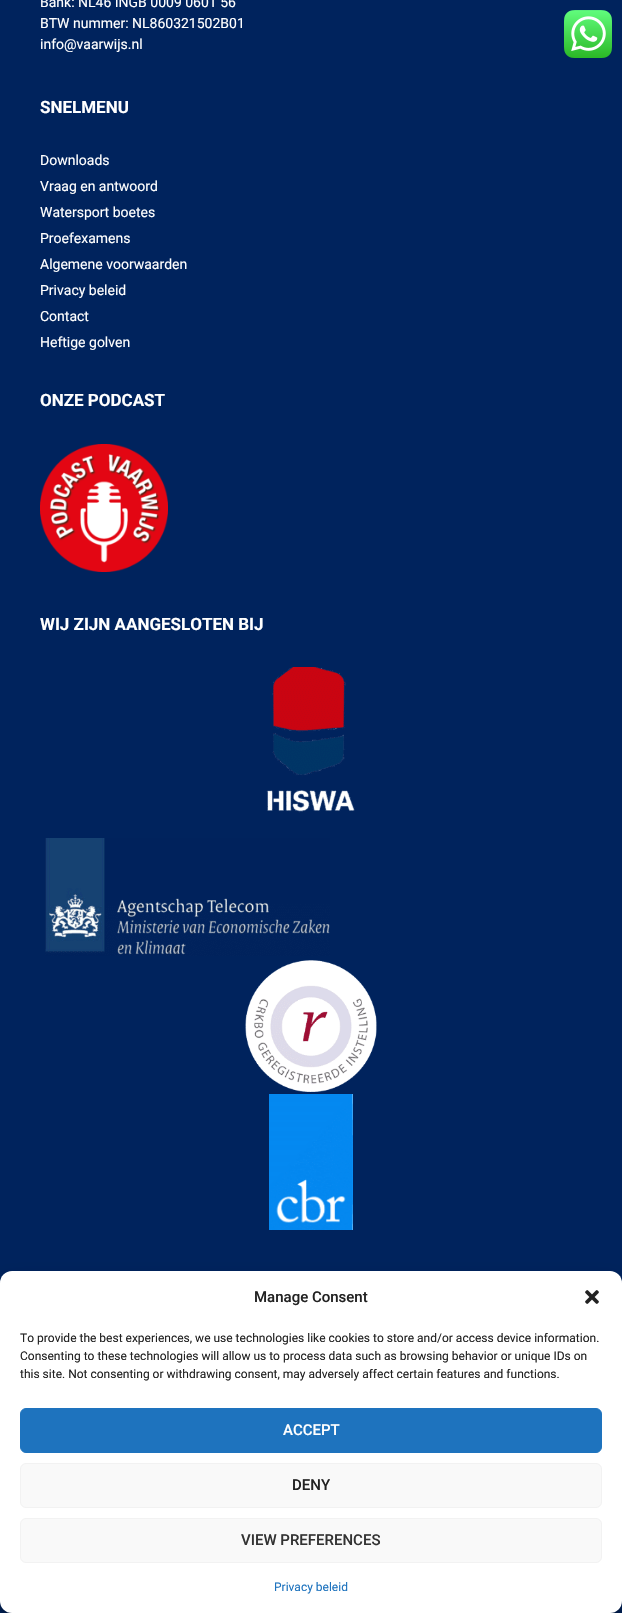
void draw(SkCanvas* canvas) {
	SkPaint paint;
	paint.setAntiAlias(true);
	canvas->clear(0xff00235d);
	SkFont f1(fontMgr->matchFamilyStyle("Roboto", SkFontStyle::Normal()), 14);
	f1.setSubpixel(true);
	paint.setColor(0xffffffff);
	canvas->drawString("Bank: NL46 INGB 0009 0601 56", 40, 7, f1, paint);
	canvas->drawString("BTW nummer: NL860321502B01", 40, 28, f1, paint);
	canvas->drawString("info@vaarwijs.nl", 40, 49, f1, paint);
	SkFont f2(fontMgr->matchFamilyStyle("Roboto", SkFontStyle::Bold()), 17);
	f2.setSubpixel(true);
	canvas->drawString("SNELMENU", 40, 113, f2, paint);
	canvas->drawString("Downloads", 40, 165, f1, paint);
	canvas->drawString("Vraag en antwoord", 40, 191, f1, paint);
	canvas->drawString("Watersport boetes", 40, 217, f1, paint);
	canvas->drawString("Proefexamens", 40, 243, f1, paint);
	canvas->drawString("Algemene voorwaarden", 40, 269, f1, paint);
	canvas->drawString("Privacy beleid", 40, 295, f1, paint);
	canvas->drawString("Contact", 40, 321, f1, paint);
	canvas->drawString("Heftige golven", 40, 347, f1, paint);
	canvas->drawString("ONZE PODCAST", 40, 406, f2, paint);
	canvas->drawImageRect(SkImages::DeferredFromEncodedData(SkData::MakeFromFileName("img1.png")), SkRect::MakeXYWH(40, 444, 128, 128), SkSamplingOptions());
	canvas->drawString("WIJ ZIJN AANGESLOTEN BIJ", 40, 630, f2, paint);
	canvas->drawImageRect(SkImages::DeferredFromEncodedData(SkData::MakeFromFileName("img2.png")), SkRect::MakeXYWH(266, 667, 89, 146), SkSamplingOptions());
	canvas->drawImageRect(SkImages::DeferredFromEncodedData(SkData::MakeFromFileName("img3.png")), SkRect::MakeXYWH(45, 838, 285, 118), SkSamplingOptions());
	canvas->drawImageRect(SkImages::DeferredFromEncodedData(SkData::MakeFromFileName("img4.png")), SkRect::MakeXYWH(245, 960, 132, 132), SkSamplingOptions());
	canvas->drawImageRect(SkImages::DeferredFromEncodedData(SkData::MakeFromFileName("img5.png")), SkRect::MakeXYWH(269, 1094, 84, 136), SkSamplingOptions());
	canvas->drawImageRect(SkImages::DeferredFromEncodedData(SkData::MakeFromFileName("img6.png")), SkRect::MakeXYWH(564, 10, 48, 48), SkSamplingOptions());
	paint.setColor(0x3b000000);
	paint.setMaskFilter(SkMaskFilter::MakeBlur(kNormal_SkBlurStyle, 3));
	canvas->drawRoundRect(SkRect::MakeXYWH(0, 1277, 622, 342), 12, 12, paint);
	paint.setMaskFilter(nullptr);
	paint.setColor(0x30000000);
	paint.setMaskFilter(SkMaskFilter::MakeBlur(kNormal_SkBlurStyle, 10));
	canvas->drawRoundRect(SkRect::MakeXYWH(0, 1281, 622, 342), 12, 12, paint);
	paint.setMaskFilter(nullptr);
	paint.setColor(0xffffffff);
	canvas->drawRoundRect(SkRect::MakeXYWH(0, 1271, 622, 342), 12, 12, paint);
	SkFont f3(fontMgr->matchFamilyStyle("Roboto", SkFontStyle(500, SkFontStyle::kNormal_Width, SkFontStyle::kUpright_Slant)), 15);
	f3.setSubpixel(true);
	paint.setColor(0xff222222);
	canvas->drawString("Manage Consent", 254, 1302, f3, paint);
	canvas->drawImageRect(SkImages::DeferredFromEncodedData(SkData::MakeFromFileName("img7.png")), SkRect::MakeXYWH(585, 1290, 14, 14), SkSamplingOptions());
	SkFont f4(fontMgr->matchFamilyStyle("Roboto", SkFontStyle::Normal()), 12);
	f4.setSubpixel(true);
	canvas->drawString("To provide the best experiences, we use technologies like cookies to store and/or access device information.", 20, 1342, f4, paint);
	canvas->drawString("Consenting to these technologies will allow us to process data such as browsing behavior or unique IDs on", 20, 1360, f4, paint);
	canvas->drawString("this site. Not consenting or withdrawing consent, may adversely affect certain features and functions.", 20, 1378, f4, paint);
	paint.setColor(0xff1e73be);
	canvas->drawRoundRect(SkRect::MakeXYWH(20.5, 1408.5, 581, 44), 5.5, 5.5, paint);
	paint.setStroke(true);
	paint.setStrokeWidth(1);
	canvas->drawRoundRect(SkRect::MakeXYWH(20.5, 1408.5, 581, 44), 5.5, 5.5, paint);
	paint.setStroke(false);
	paint.setColor(0xffffffff);
	canvas->drawString("ACCEPT", 283, 1435, f3, paint);
	paint.setColor(0xfff9f9f9);
	canvas->drawRoundRect(SkRect::MakeXYWH(20.5, 1463.5, 581, 44), 5.5, 5.5, paint);
	paint.setStroke(true);
	paint.setColor(0xfff2f2f2);
	canvas->drawRoundRect(SkRect::MakeXYWH(20.5, 1463.5, 581, 44), 5.5, 5.5, paint);
	paint.setStroke(false);
	paint.setColor(0xff222222);
	canvas->drawString("DENY", 292, 1490, f3, paint);
	paint.setColor(0xfff9f9f9);
	canvas->drawRoundRect(SkRect::MakeXYWH(20.5, 1518.5, 581, 44), 5.5, 5.5, paint);
	paint.setStroke(true);
	paint.setColor(0xfff2f2f2);
	canvas->drawRoundRect(SkRect::MakeXYWH(20.5, 1518.5, 581, 44), 5.5, 5.5, paint);
	paint.setStroke(false);
	paint.setColor(0xff333333);
	canvas->drawString("VIEW PREFERENCES", 241, 1545, f3, paint);
	paint.setColor(0xff1e73be);
	canvas->drawString("Privacy beleid", 274, 1591, f4, paint);
}
